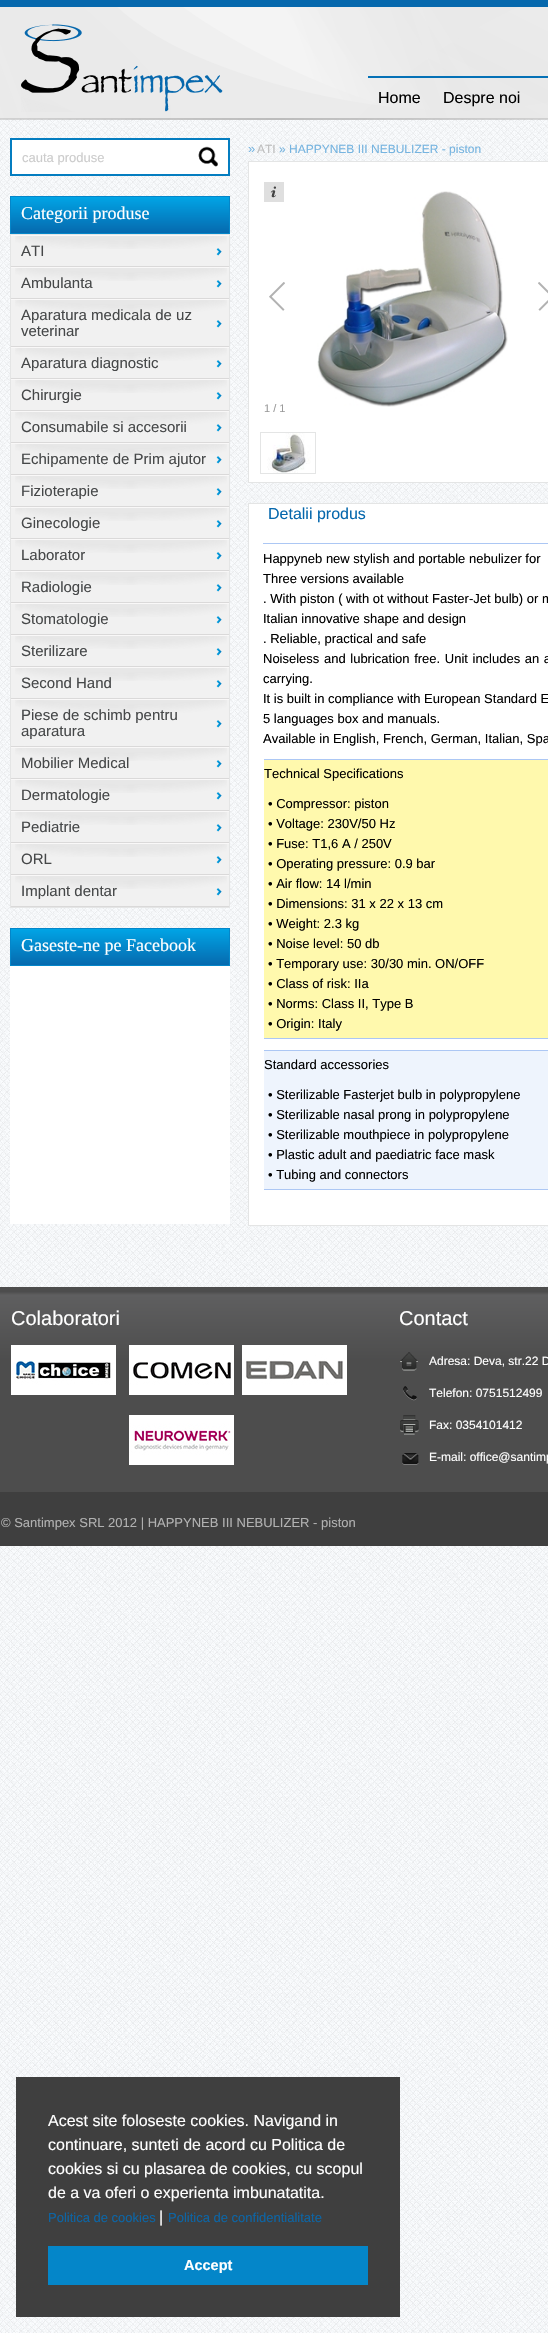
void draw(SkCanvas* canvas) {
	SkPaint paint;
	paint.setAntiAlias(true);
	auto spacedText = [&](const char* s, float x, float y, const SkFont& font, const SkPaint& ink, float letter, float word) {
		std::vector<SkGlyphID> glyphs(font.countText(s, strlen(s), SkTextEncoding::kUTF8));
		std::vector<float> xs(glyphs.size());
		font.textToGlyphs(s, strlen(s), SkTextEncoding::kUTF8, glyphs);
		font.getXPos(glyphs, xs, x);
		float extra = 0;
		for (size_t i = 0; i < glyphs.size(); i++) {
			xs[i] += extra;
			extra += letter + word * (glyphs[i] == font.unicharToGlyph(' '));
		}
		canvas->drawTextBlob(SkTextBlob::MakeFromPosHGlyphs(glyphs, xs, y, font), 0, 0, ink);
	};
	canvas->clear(0xffffffff);
	canvas->drawImageRect(SkImages::DeferredFromEncodedData(SkData::MakeFromFileName("img1.png")), SkRect::MakeXYWH(0, 119, 548, 2214), SkSamplingOptions());
	canvas->drawImageRect(SkImages::DeferredFromEncodedData(SkData::MakeFromFileName("img2.png")), SkRect::MakeXYWH(0, 0, 548, 7), SkSamplingOptions());
	canvas->drawImageRect(SkImages::DeferredFromEncodedData(SkData::MakeFromFileName("img3.png")), SkRect::MakeXYWH(0, 7, 548, 113), SkSamplingOptions());
	canvas->drawImageRect(SkImages::DeferredFromEncodedData(SkData::MakeFromFileName("img4.png")), SkRect::MakeXYWH(21, 24, 202, 88), SkSamplingOptions());
	paint.setColor(0xff0571b6);
	canvas->drawRect(SkRect::MakeXYWH(368, 76, 180, 2), paint);
	SkFont f1(fontMgr->matchFamilyStyle("Liberation Sans", SkFontStyle::Normal()), 16);
	f1.setSubpixel(true);
	paint.setColor(0xff000000);
	canvas->drawString("Home", 378, 103, f1, paint);
	canvas->drawString("Despre noi", 443, 103, f1, paint);
	paint.setColor(0xffffffff);
	canvas->drawRect(SkRect::MakeXYWH(11, 139, 218, 36), paint);
	paint.setStroke(true);
	paint.setStrokeWidth(2);
	paint.setColor(0xff047dc0);
	canvas->drawRect(SkRect::MakeXYWH(11, 139, 218, 36), paint);
	SkFont f2(fontMgr->matchFamilyStyle("Liberation Sans", SkFontStyle::Normal()), 13);
	f2.setSubpixel(true);
	paint.setStroke(false);
	paint.setColor(0xffcccccc);
	canvas->drawString("cauta produse", 22, 162, f2, paint);
	canvas->drawImageRect(SkImages::DeferredFromEncodedData(SkData::MakeFromFileName("img5.png")), SkRect::MakeXYWH(198, 146, 20, 21), SkSamplingOptions());
	canvas->drawImageRect(SkImages::DeferredFromEncodedData(SkData::MakeFromFileName("img6.png")), SkRect::MakeXYWH(11, 197, 218, 37), SkSamplingOptions());
	paint.setColor(0xff0486c9);
	canvas->drawRect(SkRect::MakeXYWH(10, 196, 220, 1), paint);
	canvas->drawRect(SkRect::MakeXYWH(229, 196, 1, 38), paint);
	canvas->drawRect(SkRect::MakeXYWH(10, 196, 1, 38), paint);
	SkFont f3(fontMgr->matchFamilyStyle("Liberation Serif", SkFontStyle::Normal()), 18);
	f3.setSubpixel(true);
	paint.setColor(0xffffffff);
	canvas->drawString("Categorii produse", 21, 219, f3, paint);
	paint.setStroke(true);
	paint.setStrokeWidth(1);
	paint.setColor(0xffe4e5e5);
	canvas->drawRect(SkRect::MakeXYWH(10.5, 234.5, 219, 673), paint);
	paint.setStroke(false);
	paint.setColor(0xfff1f1f1);
	canvas->drawRect(SkRect::MakeXYWH(11, 236, 218, 30), paint);
	canvas->drawImageRect(SkImages::DeferredFromEncodedData(SkData::MakeFromFileName("img7.png")), SkRect::MakeXYWH(216, 248, 6, 8), SkSamplingOptions());
	paint.setColor(0xfff9f8f8);
	canvas->drawRect(SkRect::MakeXYWH(11, 235, 218, 1), paint);
	paint.setColor(0xffdad9d9);
	canvas->drawRect(SkRect::MakeXYWH(11, 266, 218, 1), paint);
	canvas->drawImageRect(SkImages::DeferredFromEncodedData(SkData::MakeFromFileName("img8.png")), SkRect::MakeXYWH(15, 236, 212, 13), SkSamplingOptions());
	SkFont f4(fontMgr->matchFamilyStyle("Liberation Sans", SkFontStyle::Normal()), 15);
	f4.setSubpixel(true);
	paint.setColor(0xff464849);
	canvas->drawString("ATI", 21, 256, f4, paint);
	paint.setColor(0xfff1f1f1);
	canvas->drawRect(SkRect::MakeXYWH(11, 268, 218, 30), paint);
	canvas->drawImageRect(SkImages::DeferredFromEncodedData(SkData::MakeFromFileName("img7.png")), SkRect::MakeXYWH(216, 280, 6, 8), SkSamplingOptions());
	paint.setColor(0xfff9f8f8);
	canvas->drawRect(SkRect::MakeXYWH(11, 267, 218, 1), paint);
	paint.setColor(0xffdad9d9);
	canvas->drawRect(SkRect::MakeXYWH(11, 298, 218, 1), paint);
	canvas->drawImageRect(SkImages::DeferredFromEncodedData(SkData::MakeFromFileName("img8.png")), SkRect::MakeXYWH(15, 268, 212, 13), SkSamplingOptions());
	paint.setColor(0xff464849);
	canvas->drawString("Ambulanta", 21, 288, f4, paint);
	paint.setColor(0xfff1f1f1);
	canvas->drawRect(SkRect::MakeXYWH(11, 300, 218, 46), paint);
	canvas->drawImageRect(SkImages::DeferredFromEncodedData(SkData::MakeFromFileName("img7.png")), SkRect::MakeXYWH(216, 320, 6, 8), SkSamplingOptions());
	paint.setColor(0xfff9f8f8);
	canvas->drawRect(SkRect::MakeXYWH(11, 299, 218, 1), paint);
	paint.setColor(0xffdad9d9);
	canvas->drawRect(SkRect::MakeXYWH(11, 346, 218, 1), paint);
	canvas->drawImageRect(SkImages::DeferredFromEncodedData(SkData::MakeFromFileName("img9.png")), SkRect::MakeXYWH(15, 300, 212, 13), SkSamplingOptions());
	paint.setColor(0xff464849);
	canvas->drawString("Aparatura medicala de uz", 21, 320, f4, paint);
	canvas->drawString("veterinar", 21, 336, f4, paint);
	paint.setColor(0xfff1f1f1);
	canvas->drawRect(SkRect::MakeXYWH(11, 348, 218, 30), paint);
	canvas->drawImageRect(SkImages::DeferredFromEncodedData(SkData::MakeFromFileName("img7.png")), SkRect::MakeXYWH(216, 360, 6, 8), SkSamplingOptions());
	paint.setColor(0xfff9f8f8);
	canvas->drawRect(SkRect::MakeXYWH(11, 347, 218, 1), paint);
	paint.setColor(0xffdad9d9);
	canvas->drawRect(SkRect::MakeXYWH(11, 378, 218, 1), paint);
	canvas->drawImageRect(SkImages::DeferredFromEncodedData(SkData::MakeFromFileName("img8.png")), SkRect::MakeXYWH(15, 348, 212, 13), SkSamplingOptions());
	paint.setColor(0xff464849);
	canvas->drawString("Aparatura diagnostic", 21, 368, f4, paint);
	paint.setColor(0xfff1f1f1);
	canvas->drawRect(SkRect::MakeXYWH(11, 380, 218, 30), paint);
	canvas->drawImageRect(SkImages::DeferredFromEncodedData(SkData::MakeFromFileName("img7.png")), SkRect::MakeXYWH(216, 392, 6, 8), SkSamplingOptions());
	paint.setColor(0xfff9f8f8);
	canvas->drawRect(SkRect::MakeXYWH(11, 379, 218, 1), paint);
	paint.setColor(0xffdad9d9);
	canvas->drawRect(SkRect::MakeXYWH(11, 410, 218, 1), paint);
	canvas->drawImageRect(SkImages::DeferredFromEncodedData(SkData::MakeFromFileName("img8.png")), SkRect::MakeXYWH(15, 380, 212, 13), SkSamplingOptions());
	paint.setColor(0xff464849);
	canvas->drawString("Chirurgie", 21, 400, f4, paint);
	paint.setColor(0xfff1f1f1);
	canvas->drawRect(SkRect::MakeXYWH(11, 412, 218, 30), paint);
	canvas->drawImageRect(SkImages::DeferredFromEncodedData(SkData::MakeFromFileName("img7.png")), SkRect::MakeXYWH(216, 424, 6, 8), SkSamplingOptions());
	paint.setColor(0xfff9f8f8);
	canvas->drawRect(SkRect::MakeXYWH(11, 411, 218, 1), paint);
	paint.setColor(0xffdad9d9);
	canvas->drawRect(SkRect::MakeXYWH(11, 442, 218, 1), paint);
	canvas->drawImageRect(SkImages::DeferredFromEncodedData(SkData::MakeFromFileName("img8.png")), SkRect::MakeXYWH(15, 412, 212, 13), SkSamplingOptions());
	paint.setColor(0xff464849);
	canvas->drawString("Consumabile si accesorii", 21, 432, f4, paint);
	paint.setColor(0xfff1f1f1);
	canvas->drawRect(SkRect::MakeXYWH(11, 444, 218, 30), paint);
	canvas->drawImageRect(SkImages::DeferredFromEncodedData(SkData::MakeFromFileName("img7.png")), SkRect::MakeXYWH(216, 456, 6, 8), SkSamplingOptions());
	paint.setColor(0xfff9f8f8);
	canvas->drawRect(SkRect::MakeXYWH(11, 443, 218, 1), paint);
	paint.setColor(0xffdad9d9);
	canvas->drawRect(SkRect::MakeXYWH(11, 474, 218, 1), paint);
	canvas->drawImageRect(SkImages::DeferredFromEncodedData(SkData::MakeFromFileName("img8.png")), SkRect::MakeXYWH(15, 444, 212, 13), SkSamplingOptions());
	paint.setColor(0xff464849);
	canvas->drawString("Echipamente de Prim ajutor", 21, 464, f4, paint);
	paint.setColor(0xfff1f1f1);
	canvas->drawRect(SkRect::MakeXYWH(11, 476, 218, 30), paint);
	canvas->drawImageRect(SkImages::DeferredFromEncodedData(SkData::MakeFromFileName("img7.png")), SkRect::MakeXYWH(216, 488, 6, 8), SkSamplingOptions());
	paint.setColor(0xfff9f8f8);
	canvas->drawRect(SkRect::MakeXYWH(11, 475, 218, 1), paint);
	paint.setColor(0xffdad9d9);
	canvas->drawRect(SkRect::MakeXYWH(11, 506, 218, 1), paint);
	canvas->drawImageRect(SkImages::DeferredFromEncodedData(SkData::MakeFromFileName("img8.png")), SkRect::MakeXYWH(15, 476, 212, 13), SkSamplingOptions());
	paint.setColor(0xff464849);
	canvas->drawString("Fizioterapie", 21, 496, f4, paint);
	paint.setColor(0xfff1f1f1);
	canvas->drawRect(SkRect::MakeXYWH(11, 508, 218, 30), paint);
	canvas->drawImageRect(SkImages::DeferredFromEncodedData(SkData::MakeFromFileName("img7.png")), SkRect::MakeXYWH(216, 520, 6, 8), SkSamplingOptions());
	paint.setColor(0xfff9f8f8);
	canvas->drawRect(SkRect::MakeXYWH(11, 507, 218, 1), paint);
	paint.setColor(0xffdad9d9);
	canvas->drawRect(SkRect::MakeXYWH(11, 538, 218, 1), paint);
	canvas->drawImageRect(SkImages::DeferredFromEncodedData(SkData::MakeFromFileName("img8.png")), SkRect::MakeXYWH(15, 508, 212, 13), SkSamplingOptions());
	paint.setColor(0xff464849);
	canvas->drawString("Ginecologie", 21, 528, f4, paint);
	paint.setColor(0xfff1f1f1);
	canvas->drawRect(SkRect::MakeXYWH(11, 540, 218, 30), paint);
	canvas->drawImageRect(SkImages::DeferredFromEncodedData(SkData::MakeFromFileName("img7.png")), SkRect::MakeXYWH(216, 552, 6, 8), SkSamplingOptions());
	paint.setColor(0xfff9f8f8);
	canvas->drawRect(SkRect::MakeXYWH(11, 539, 218, 1), paint);
	paint.setColor(0xffdad9d9);
	canvas->drawRect(SkRect::MakeXYWH(11, 570, 218, 1), paint);
	canvas->drawImageRect(SkImages::DeferredFromEncodedData(SkData::MakeFromFileName("img8.png")), SkRect::MakeXYWH(15, 540, 212, 13), SkSamplingOptions());
	paint.setColor(0xff464849);
	canvas->drawString("Laborator", 21, 560, f4, paint);
	paint.setColor(0xfff1f1f1);
	canvas->drawRect(SkRect::MakeXYWH(11, 572, 218, 30), paint);
	canvas->drawImageRect(SkImages::DeferredFromEncodedData(SkData::MakeFromFileName("img7.png")), SkRect::MakeXYWH(216, 584, 6, 8), SkSamplingOptions());
	paint.setColor(0xfff9f8f8);
	canvas->drawRect(SkRect::MakeXYWH(11, 571, 218, 1), paint);
	paint.setColor(0xffdad9d9);
	canvas->drawRect(SkRect::MakeXYWH(11, 602, 218, 1), paint);
	canvas->drawImageRect(SkImages::DeferredFromEncodedData(SkData::MakeFromFileName("img8.png")), SkRect::MakeXYWH(15, 572, 212, 13), SkSamplingOptions());
	paint.setColor(0xff464849);
	canvas->drawString("Radiologie", 21, 592, f4, paint);
	paint.setColor(0xfff1f1f1);
	canvas->drawRect(SkRect::MakeXYWH(11, 604, 218, 30), paint);
	canvas->drawImageRect(SkImages::DeferredFromEncodedData(SkData::MakeFromFileName("img7.png")), SkRect::MakeXYWH(216, 616, 6, 8), SkSamplingOptions());
	paint.setColor(0xfff9f8f8);
	canvas->drawRect(SkRect::MakeXYWH(11, 603, 218, 1), paint);
	paint.setColor(0xffdad9d9);
	canvas->drawRect(SkRect::MakeXYWH(11, 634, 218, 1), paint);
	canvas->drawImageRect(SkImages::DeferredFromEncodedData(SkData::MakeFromFileName("img8.png")), SkRect::MakeXYWH(15, 604, 212, 13), SkSamplingOptions());
	paint.setColor(0xff464849);
	canvas->drawString("Stomatologie", 21, 624, f4, paint);
	paint.setColor(0xfff1f1f1);
	canvas->drawRect(SkRect::MakeXYWH(11, 636, 218, 30), paint);
	canvas->drawImageRect(SkImages::DeferredFromEncodedData(SkData::MakeFromFileName("img7.png")), SkRect::MakeXYWH(216, 648, 6, 8), SkSamplingOptions());
	paint.setColor(0xfff9f8f8);
	canvas->drawRect(SkRect::MakeXYWH(11, 635, 218, 1), paint);
	paint.setColor(0xffdad9d9);
	canvas->drawRect(SkRect::MakeXYWH(11, 666, 218, 1), paint);
	canvas->drawImageRect(SkImages::DeferredFromEncodedData(SkData::MakeFromFileName("img8.png")), SkRect::MakeXYWH(15, 636, 212, 13), SkSamplingOptions());
	paint.setColor(0xff464849);
	canvas->drawString("Sterilizare", 21, 656, f4, paint);
	paint.setColor(0xfff1f1f1);
	canvas->drawRect(SkRect::MakeXYWH(11, 668, 218, 30), paint);
	canvas->drawImageRect(SkImages::DeferredFromEncodedData(SkData::MakeFromFileName("img7.png")), SkRect::MakeXYWH(216, 680, 6, 8), SkSamplingOptions());
	paint.setColor(0xfff9f8f8);
	canvas->drawRect(SkRect::MakeXYWH(11, 667, 218, 1), paint);
	paint.setColor(0xffdad9d9);
	canvas->drawRect(SkRect::MakeXYWH(11, 698, 218, 1), paint);
	canvas->drawImageRect(SkImages::DeferredFromEncodedData(SkData::MakeFromFileName("img8.png")), SkRect::MakeXYWH(15, 668, 212, 13), SkSamplingOptions());
	paint.setColor(0xff464849);
	canvas->drawString("Second Hand", 21, 688, f4, paint);
	paint.setColor(0xfff1f1f1);
	canvas->drawRect(SkRect::MakeXYWH(11, 700, 218, 46), paint);
	canvas->drawImageRect(SkImages::DeferredFromEncodedData(SkData::MakeFromFileName("img7.png")), SkRect::MakeXYWH(216, 720, 6, 8), SkSamplingOptions());
	paint.setColor(0xfff9f8f8);
	canvas->drawRect(SkRect::MakeXYWH(11, 699, 218, 1), paint);
	paint.setColor(0xffdad9d9);
	canvas->drawRect(SkRect::MakeXYWH(11, 746, 218, 1), paint);
	canvas->drawImageRect(SkImages::DeferredFromEncodedData(SkData::MakeFromFileName("img9.png")), SkRect::MakeXYWH(15, 700, 212, 13), SkSamplingOptions());
	paint.setColor(0xff464849);
	canvas->drawString("Piese de schimb pentru", 21, 720, f4, paint);
	canvas->drawString("aparatura", 21, 736, f4, paint);
	paint.setColor(0xfff1f1f1);
	canvas->drawRect(SkRect::MakeXYWH(11, 748, 218, 30), paint);
	canvas->drawImageRect(SkImages::DeferredFromEncodedData(SkData::MakeFromFileName("img7.png")), SkRect::MakeXYWH(216, 760, 6, 8), SkSamplingOptions());
	paint.setColor(0xfff9f8f8);
	canvas->drawRect(SkRect::MakeXYWH(11, 747, 218, 1), paint);
	paint.setColor(0xffdad9d9);
	canvas->drawRect(SkRect::MakeXYWH(11, 778, 218, 1), paint);
	canvas->drawImageRect(SkImages::DeferredFromEncodedData(SkData::MakeFromFileName("img8.png")), SkRect::MakeXYWH(15, 748, 212, 13), SkSamplingOptions());
	paint.setColor(0xff464849);
	canvas->drawString("Mobilier Medical", 21, 768, f4, paint);
	paint.setColor(0xfff1f1f1);
	canvas->drawRect(SkRect::MakeXYWH(11, 780, 218, 30), paint);
	canvas->drawImageRect(SkImages::DeferredFromEncodedData(SkData::MakeFromFileName("img7.png")), SkRect::MakeXYWH(216, 792, 6, 8), SkSamplingOptions());
	paint.setColor(0xfff9f8f8);
	canvas->drawRect(SkRect::MakeXYWH(11, 779, 218, 1), paint);
	paint.setColor(0xffdad9d9);
	canvas->drawRect(SkRect::MakeXYWH(11, 810, 218, 1), paint);
	canvas->drawImageRect(SkImages::DeferredFromEncodedData(SkData::MakeFromFileName("img8.png")), SkRect::MakeXYWH(15, 780, 212, 13), SkSamplingOptions());
	paint.setColor(0xff464849);
	canvas->drawString("Dermatologie", 21, 800, f4, paint);
	paint.setColor(0xfff1f1f1);
	canvas->drawRect(SkRect::MakeXYWH(11, 812, 218, 30), paint);
	canvas->drawImageRect(SkImages::DeferredFromEncodedData(SkData::MakeFromFileName("img7.png")), SkRect::MakeXYWH(216, 824, 6, 8), SkSamplingOptions());
	paint.setColor(0xfff9f8f8);
	canvas->drawRect(SkRect::MakeXYWH(11, 811, 218, 1), paint);
	paint.setColor(0xffdad9d9);
	canvas->drawRect(SkRect::MakeXYWH(11, 842, 218, 1), paint);
	canvas->drawImageRect(SkImages::DeferredFromEncodedData(SkData::MakeFromFileName("img8.png")), SkRect::MakeXYWH(15, 812, 212, 13), SkSamplingOptions());
	paint.setColor(0xff464849);
	canvas->drawString("Pediatrie", 21, 832, f4, paint);
	paint.setColor(0xfff1f1f1);
	canvas->drawRect(SkRect::MakeXYWH(11, 844, 218, 30), paint);
	canvas->drawImageRect(SkImages::DeferredFromEncodedData(SkData::MakeFromFileName("img7.png")), SkRect::MakeXYWH(216, 856, 6, 8), SkSamplingOptions());
	paint.setColor(0xfff9f8f8);
	canvas->drawRect(SkRect::MakeXYWH(11, 843, 218, 1), paint);
	paint.setColor(0xffdad9d9);
	canvas->drawRect(SkRect::MakeXYWH(11, 874, 218, 1), paint);
	canvas->drawImageRect(SkImages::DeferredFromEncodedData(SkData::MakeFromFileName("img8.png")), SkRect::MakeXYWH(15, 844, 212, 13), SkSamplingOptions());
	paint.setColor(0xff464849);
	canvas->drawString("ORL", 21, 864, f4, paint);
	paint.setColor(0xfff1f1f1);
	canvas->drawRect(SkRect::MakeXYWH(11, 876, 218, 30), paint);
	canvas->drawImageRect(SkImages::DeferredFromEncodedData(SkData::MakeFromFileName("img7.png")), SkRect::MakeXYWH(216, 888, 6, 8), SkSamplingOptions());
	paint.setColor(0xfff9f8f8);
	canvas->drawRect(SkRect::MakeXYWH(11, 875, 218, 1), paint);
	paint.setColor(0xffdad9d9);
	canvas->drawRect(SkRect::MakeXYWH(11, 906, 218, 1), paint);
	canvas->drawImageRect(SkImages::DeferredFromEncodedData(SkData::MakeFromFileName("img8.png")), SkRect::MakeXYWH(15, 876, 212, 13), SkSamplingOptions());
	paint.setColor(0xff464849);
	canvas->drawString("Implant dentar", 21, 896, f4, paint);
	canvas->drawImageRect(SkImages::DeferredFromEncodedData(SkData::MakeFromFileName("img6.png")), SkRect::MakeXYWH(11, 929, 218, 37), SkSamplingOptions());
	paint.setColor(0xff0486c9);
	canvas->drawRect(SkRect::MakeXYWH(10, 928, 220, 1), paint);
	canvas->drawRect(SkRect::MakeXYWH(229, 928, 1, 38), paint);
	canvas->drawRect(SkRect::MakeXYWH(10, 928, 1, 38), paint);
	paint.setColor(0xffffffff);
	canvas->drawString("Gaseste-ne pe Facebook", 21, 951, f3, paint);
	canvas->drawRect(SkRect::MakeXYWH(10, 966, 220, 258), paint);
	paint.setColor(0xff76b4e0);
	canvas->drawString("»", 248, 153, f2, paint);
	SkFont f5(fontMgr->matchFamilyStyle("Liberation Sans", SkFontStyle::Normal()), 12);
	f5.setSubpixel(true);
	paint.setColor(0xffbdbdbd);
	canvas->drawString("ATI", 257, 153, f5, paint);
	paint.setColor(0xff76b4e0);
	canvas->drawString("» HAPPYNEB III NEBULIZER - piston", 279, 153, f5, paint);
	paint.setColor(0xffffffff);
	canvas->drawRect(SkRect::MakeXYWH(248.5, 161.5, 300, 321), paint);
	paint.setStroke(true);
	paint.setColor(0xffe4e5e5);
	canvas->drawRect(SkRect::MakeXYWH(248.5, 161.5, 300, 321), paint);
	paint.setStroke(false);
	paint.setColor(0xffdfdfdf);
	canvas->drawRect(SkRect::MakeXYWH(264, 182, 20, 20), paint);
	canvas->drawImageRect(SkImages::DeferredFromEncodedData(SkData::MakeFromFileName("img10.png")), SkRect::MakeXYWH(270, 186, 6, 12), SkSamplingOptions());
	canvas->drawImageRect(SkImages::DeferredFromEncodedData(SkData::MakeFromFileName("img11.png")), SkRect::MakeXYWH(317, 191, 191, 216), SkSamplingOptions());
	canvas->drawImageRect(SkImages::DeferredFromEncodedData(SkData::MakeFromFileName("img12.png")), SkRect::MakeXYWH(269, 282, 16, 29), SkSamplingOptions());
	canvas->drawImageRect(SkImages::DeferredFromEncodedData(SkData::MakeFromFileName("img13.png")), SkRect::MakeXYWH(538, 282, 10, 29), SkSamplingOptions());
	SkFont f6(fontMgr->matchFamilyStyle("Liberation Sans", SkFontStyle::Normal()), 11);
	f6.setSubpixel(true);
	paint.setColor(0xff999999);
	canvas->drawString("1 / 1", 264, 412, f6, paint);
	paint.setStroke(true);
	paint.setColor(0xffe4e5e5);
	canvas->drawRect(SkRect::MakeXYWH(260.5, 432.5, 55, 41), paint);
	canvas->drawImageRect(SkImages::DeferredFromEncodedData(SkData::MakeFromFileName("img14.png")), SkRect::MakeXYWH(261, 433, 54, 40), SkSamplingOptions());
	paint.setStroke(false);
	paint.setColor(0xffffffff);
	canvas->drawRect(SkRect::MakeXYWH(248.5, 503.5, 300, 722), paint);
	paint.setStroke(true);
	paint.setColor(0xffe4e5e5);
	canvas->drawRect(SkRect::MakeXYWH(248.5, 503.5, 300, 722), paint);
	paint.setStroke(false);
	paint.setColor(0xff0668ad);
	canvas->drawString("Detalii produs", 268, 519, f1, paint);
	paint.setColor(0xffacc7f4);
	canvas->drawRect(SkRect::MakeXYWH(263, 543, 285, 1), paint);
	paint.setColor(0xff000000);
	canvas->drawString("Happyneb new stylish and portable nebulizer for", 263, 563, f2, paint);
	canvas->drawString("Three versions available", 263, 583, f2, paint);
	canvas->drawString(". With piston ( with ot without Faster-Jet bulb) or m", 263, 603, f2, paint);
	canvas->drawString("Italian innovative shape and design", 263, 623, f2, paint);
	canvas->drawString(". Reliable, practical and safe", 263, 643, f2, paint);
	spacedText("Noiseless and lubrication free. Unit includes an a", 263, 663, f2, paint, 0, 1);
	canvas->drawString("carrying.", 263, 683, f2, paint);
	canvas->drawString("It is built in compliance with European Standard E", 263, 703, f2, paint);
	canvas->drawString("5 languages box and manuals.", 263, 723, f2, paint);
	canvas->drawString("Available in English, French, German, Italian, Spa", 263, 743, f2, paint);
	paint.setColor(0xfffff9ad);
	canvas->drawRect(SkRect::MakeXYWH(264, 760, 284, 278), paint);
	paint.setColor(0xffacc7f4);
	canvas->drawRect(SkRect::MakeXYWH(264, 759, 284, 1), paint);
	paint.setColor(0xff000000);
	canvas->drawString("Technical Specifications", 264, 778, f2, paint);
	paint.setColor(0xffacc7f4);
	canvas->drawRect(SkRect::MakeXYWH(264, 1038, 284, 1), paint);
	paint.setColor(0xff000000);
	canvas->drawString("• Compressor: piston", 268, 808, f2, paint);
	canvas->drawString("• Voltage: 230V/50 Hz", 268, 828, f2, paint);
	canvas->drawString("• Fuse: T1,6 A / 250V", 268, 848, f2, paint);
	canvas->drawString("• Operating pressure: 0.9 bar", 268, 868, f2, paint);
	canvas->drawString("• Air flow: 14 l/min", 268, 888, f2, paint);
	canvas->drawString("• Dimensions: 31 x 22 x 13 cm", 268, 908, f2, paint);
	canvas->drawString("• Weight: 2.3 kg", 268, 928, f2, paint);
	canvas->drawString("• Noise level: 50 db", 268, 948, f2, paint);
	canvas->drawString("• Temporary use: 30/30 min. ON/OFF", 268, 968, f2, paint);
	canvas->drawString("• Class of risk: IIa", 268, 988, f2, paint);
	canvas->drawString("• Norms: Class II, Type B", 268, 1008, f2, paint);
	canvas->drawString("• Origin: Italy", 268, 1028, f2, paint);
	paint.setColor(0xffeef4fd);
	canvas->drawRect(SkRect::MakeXYWH(264, 1051, 284, 138), paint);
	paint.setColor(0xffacc7f4);
	canvas->drawRect(SkRect::MakeXYWH(264, 1050, 284, 1), paint);
	paint.setColor(0xff000000);
	canvas->drawString("Standard accessories", 264, 1069, f2, paint);
	paint.setColor(0xffacc7f4);
	canvas->drawRect(SkRect::MakeXYWH(264, 1189, 284, 1), paint);
	paint.setColor(0xff000000);
	canvas->drawString("• Sterilizable Fasterjet bulb in polypropylene", 268, 1099, f2, paint);
	canvas->drawString("• Sterilizable nasal prong in polypropylene", 268, 1119, f2, paint);
	canvas->drawString("• Sterilizable mouthpiece in polypropylene", 268, 1139, f2, paint);
	canvas->drawString("• Plastic adult and paediatric face mask", 268, 1159, f2, paint);
	canvas->drawString("• Tubing and connectors", 268, 1179, f2, paint);
	paint.setColor(0xff3f3f3f);
	canvas->drawRect(SkRect::MakeXYWH(0, 1492, 548, 54), paint);
	canvas->drawImageRect(SkImages::DeferredFromEncodedData(SkData::MakeFromFileName("img15.png")), SkRect::MakeXYWH(0, 1287, 548, 205), SkSamplingOptions());
	SkFont f7(fontMgr->matchFamilyStyle("Liberation Sans", SkFontStyle::Normal()), 20);
	f7.setSubpixel(true);
	paint.setColor(0xffffffff);
	canvas->drawString("Colaboratori", 11, 1325, f7, paint);
	canvas->drawImageRect(SkImages::DeferredFromEncodedData(SkData::MakeFromFileName("img16.png")), SkRect::MakeXYWH(11, 1345, 105, 50), SkSamplingOptions());
	canvas->drawImageRect(SkImages::DeferredFromEncodedData(SkData::MakeFromFileName("img17.png")), SkRect::MakeXYWH(129, 1345, 105, 50), SkSamplingOptions());
	canvas->drawImageRect(SkImages::DeferredFromEncodedData(SkData::MakeFromFileName("img18.png")), SkRect::MakeXYWH(242, 1345, 105, 50), SkSamplingOptions());
	canvas->drawImageRect(SkImages::DeferredFromEncodedData(SkData::MakeFromFileName("img19.png")), SkRect::MakeXYWH(129, 1415, 105, 50), SkSamplingOptions());
	canvas->drawString("Contact", 399, 1325, f7, paint);
	canvas->drawImageRect(SkImages::DeferredFromEncodedData(SkData::MakeFromFileName("img20.png")), SkRect::MakeXYWH(400, 1352, 18, 19), SkSamplingOptions());
	canvas->drawString("Adresa: Deva, str.22 D", 429, 1365, f5, paint);
	canvas->drawImageRect(SkImages::DeferredFromEncodedData(SkData::MakeFromFileName("img21.png")), SkRect::MakeXYWH(403, 1386, 14, 15), SkSamplingOptions());
	canvas->drawString("Telefon: 0751512499", 429, 1397, f5, paint);
	canvas->drawImageRect(SkImages::DeferredFromEncodedData(SkData::MakeFromFileName("img22.png")), SkRect::MakeXYWH(400, 1415, 19, 20), SkSamplingOptions());
	canvas->drawString("Fax: 0354101412", 429, 1429, f5, paint);
	canvas->drawImageRect(SkImages::DeferredFromEncodedData(SkData::MakeFromFileName("img23.png")), SkRect::MakeXYWH(402, 1453, 17, 12), SkSamplingOptions());
	canvas->drawString("E-mail: office@santimp", 429, 1461, f5, paint);
	paint.setColor(0xffb1b1b1);
	canvas->drawString("© Santimpex SRL 2012 | HAPPYNEB III NEBULIZER - piston", 1, 1527, f2, paint);
	paint.setColor(0xff3f3f3f);
	canvas->drawRect(SkRect::MakeXYWH(16, 2077, 384, 240), paint);
	paint.setColor(0xffffffff);
	canvas->drawString("Acest site foloseste cookies. Navigand in", 48, 2126, f1, paint);
	canvas->drawString("continuare, sunteti de acord cu Politica de", 48, 2150, f1, paint);
	canvas->drawString("cookies si cu plasarea de cookies, cu scopul", 48, 2174, f1, paint);
	canvas->drawString("de a va oferi o experienta imbunatatita.", 48, 2198, f1, paint);
	paint.setColor(0xff0c65a5);
	canvas->drawString("Politica de cookies", 48, 2222, f2, paint);
	paint.setColor(0xffffffff);
	canvas->drawString("|", 159, 2222, f1, paint);
	paint.setColor(0xff0c65a5);
	canvas->drawString("Politica de confidentialitate", 168, 2222, f2, paint);
	paint.setColor(0xff0486c9);
	canvas->drawRect(SkRect::MakeXYWH(48, 2246, 320, 39), paint);
	SkFont f8(fontMgr->matchFamilyStyle("Liberation Sans", SkFontStyle::Bold()), 14.5);
	f8.setSubpixel(true);
	paint.setColor(0xffffffff);
	canvas->drawString("Accept", 184, 2270, f8, paint);
}
